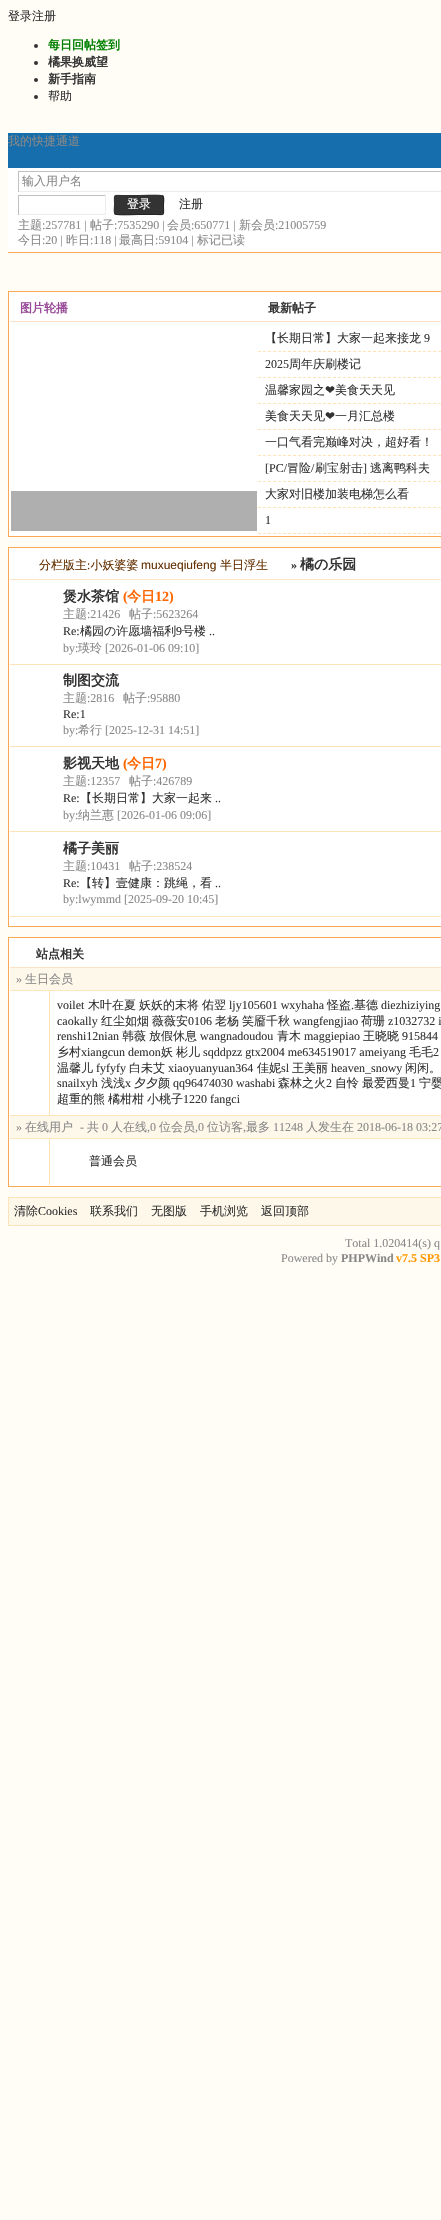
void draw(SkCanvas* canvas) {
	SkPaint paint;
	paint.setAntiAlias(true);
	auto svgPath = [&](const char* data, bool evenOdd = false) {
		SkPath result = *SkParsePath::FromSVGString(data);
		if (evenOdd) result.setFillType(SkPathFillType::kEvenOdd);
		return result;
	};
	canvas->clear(0xfffffdf6);
	SkFont f1(fontMgr->matchFamilyStyle("WenQuanYi Zen Hei", SkFontStyle(500, SkFontStyle::kNormal_Width, SkFontStyle::kUpright_Slant)), 12);
	f1.setSubpixel(true);
	paint.setColor(0xff333333);
	canvas->drawString("登录注册", 8, 20, f1, paint);
	canvas->drawCircle(36, 46, 2, paint);
	SkFont f2(fontMgr->matchFamilyStyle("WenQuanYi Zen Hei", SkFontStyle::Bold()), 12);
	f2.setSubpixel(true);
	paint.setColor(0xff008000);
	canvas->drawString("每日回帖签到", 48, 49, f2, paint);
	paint.setColor(0xff333333);
	canvas->drawCircle(36, 63, 2, paint);
	canvas->drawString("橘果换威望", 48, 66, f2, paint);
	canvas->drawCircle(36, 80, 2, paint);
	canvas->drawString("新手指南", 48, 83, f2, paint);
	canvas->drawCircle(36, 97, 2, paint);
	canvas->drawString("帮助", 48, 100, f1, paint);
	paint.setColor(0xff176eac);
	canvas->drawRect(SkRect::MakeXYWH(8, 133, 433, 35), paint);
	paint.setColor(0xff888888);
	canvas->drawString("我的快捷通道", 8, 145, f1, paint);
	paint.setColor(0xffffffff);
	canvas->drawRect(SkRect::MakeXYWH(8, 168, 433, 84), paint);
	paint.setColor(0xffc0c0c0);
	canvas->drawRect(SkRect::MakeXYWH(18, 171, 423, 1), paint);
	paint.setColor(0xffededed);
	canvas->drawRect(SkRect::MakeXYWH(18, 191, 423, 1), paint);
	paint.setColor(0xffc0c0c0);
	canvas->drawRect(SkRect::MakeXYWH(18, 171, 1, 21), paint);
	paint.setColor(0xff888888);
	canvas->drawString("输入用户名", 22, 185, f1, paint);
	paint.setColor(0xffc0c0c0);
	canvas->drawRect(SkRect::MakeXYWH(18, 195, 88, 1), paint);
	paint.setColor(0xffededed);
	canvas->drawRect(SkRect::MakeXYWH(105, 195, 1, 20), paint);
	canvas->drawRect(SkRect::MakeXYWH(18, 214, 88, 1), paint);
	paint.setColor(0xffc0c0c0);
	canvas->drawRect(SkRect::MakeXYWH(18, 195, 1, 20), paint);
	paint.setColor(0xff333333);
	canvas->drawRoundRect(SkRect::MakeXYWH(114, 195, 50, 20), 2, 2, paint);
	paint.setStroke(true);
	paint.setStrokeWidth(1);
	paint.setColor(0xff222222);
	canvas->drawPath(svgPath("M163 196C164.5 197.5 163.5 203 163.5 205C163.5 216.5 165.5 214.5 154.5 214.5H139C136 214.5 116 215.5 115 214"), paint);
	paint.setColor(0xff333333);
	canvas->drawPath(svgPath("M115 214C113.5 212.5 114.5 207 114.5 205C114.5 193.5 112.5 195.5 123.5 195.5H139C142 195.5 162 194.5 163 196"), paint);
	paint.setStroke(false);
	paint.setColor(0xffffffff);
	canvas->drawString("登录", 127, 208, f1, paint);
	paint.setColor(0xff333333);
	canvas->drawString("注册", 179, 208, f1, paint);
	paint.setColor(0xfff9a854);
	canvas->drawRect(SkRect::MakeXYWH(8, 252, 433, 1), paint);
	paint.setColor(0xff888888);
	canvas->drawString("主题", 18, 229, f1, paint);
	SkFont f3(fontMgr->matchFamilyStyle("Liberation Serif", SkFontStyle::Normal()), 12);
	f3.setSubpixel(true);
	canvas->drawString(":257781 |", 42, 229, f3, paint);
	canvas->drawString("帖子", 90, 229, f1, paint);
	canvas->drawString(":7535290 |", 114, 229, f3, paint);
	canvas->drawString("会员", 167, 229, f1, paint);
	canvas->drawString(":650771 |", 191, 229, f3, paint);
	canvas->drawString("新会员", 239, 229, f1, paint);
	canvas->drawString(":21005759", 275, 229, f3, paint);
	canvas->drawString("今日", 18, 244, f1, paint);
	canvas->drawString(":20 |", 42, 244, f3, paint);
	canvas->drawString("昨日", 66, 244, f1, paint);
	canvas->drawString(":118 |", 90, 244, f3, paint);
	canvas->drawString("最高日", 119, 244, f1, paint);
	canvas->drawString(":59104 |", 155, 244, f3, paint);
	canvas->drawString("标记已读", 197, 244, f1, paint);
	paint.setColor(0xffffffff);
	canvas->drawRect(SkRect::MakeXYWH(8.5, 291.5, 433, 245), paint);
	paint.setStroke(true);
	paint.setColor(0xfff9a854);
	canvas->drawRect(SkRect::MakeXYWH(8.5, 291.5, 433, 245), paint);
	paint.setStroke(false);
	paint.setColor(0xfffde2c5);
	canvas->drawRect(SkRect::MakeXYWH(10, 321, 431, 1), paint);
	paint.setColor(0xff984b98);
	canvas->drawString("图片轮播", 20, 312, f2, paint);
	paint.setColor(0xffafafaf);
	canvas->drawRect(SkRect::MakeXYWH(11, 491, 246, 40), paint);
	paint.setColor(0xff333333);
	canvas->drawString("最新帖子", 268, 312, f2, paint);
	paint.setStroke(true);
	paint.setColor(0xfffee3b9);
	paint.setPathEffect(SkDashPathEffect::Make({{3, 2}}, 0));
	canvas->drawPath(svgPath("M258 351.5H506"), paint);
	paint.setPathEffect(nullptr);
	paint.setStroke(false);
	paint.setColor(0xff333333);
	canvas->drawString("【长期日常】大家一起来接龙", 265, 342, f1, paint);
	canvas->drawString("9", 424, 342, f3, paint);
	paint.setStroke(true);
	paint.setColor(0xfffee3b9);
	paint.setPathEffect(SkDashPathEffect::Make({{3, 2}}, 0));
	canvas->drawPath(svgPath("M258 377.5H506"), paint);
	paint.setPathEffect(nullptr);
	paint.setStroke(false);
	paint.setColor(0xff333333);
	canvas->drawString("2025", 265, 368, f3, paint);
	canvas->drawString("周年庆刷楼记", 289, 368, f1, paint);
	paint.setStroke(true);
	paint.setColor(0xfffee3b9);
	paint.setPathEffect(SkDashPathEffect::Make({{3, 2}}, 0));
	canvas->drawPath(svgPath("M258 403.5H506"), paint);
	paint.setPathEffect(nullptr);
	paint.setStroke(false);
	paint.setColor(0xff333333);
	canvas->drawString("温馨家园之", 265, 394, f1, paint);
	SkFont f4(fontMgr->matchFamilyStyle("DejaVu Sans", SkFontStyle::Normal()), 12);
	f4.setSubpixel(true);
	canvas->drawString("❤", 325, 394, f4, paint);
	canvas->drawString("美食天天见", 335, 394, f1, paint);
	paint.setStroke(true);
	paint.setColor(0xfffee3b9);
	paint.setPathEffect(SkDashPathEffect::Make({{3, 2}}, 0));
	canvas->drawPath(svgPath("M258 429.5H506"), paint);
	paint.setPathEffect(nullptr);
	paint.setStroke(false);
	paint.setColor(0xff333333);
	canvas->drawString("美食天天见", 265, 420, f1, paint);
	canvas->drawString("❤", 325, 420, f4, paint);
	canvas->drawString("一月汇总楼", 335, 420, f1, paint);
	paint.setStroke(true);
	paint.setColor(0xfffee3b9);
	paint.setPathEffect(SkDashPathEffect::Make({{3, 2}}, 0));
	canvas->drawPath(svgPath("M258 455.5H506"), paint);
	paint.setPathEffect(nullptr);
	paint.setStroke(false);
	paint.setColor(0xff333333);
	canvas->drawString("一口气看完巅峰对决，超好看！", 265, 446, f1, paint);
	paint.setStroke(true);
	paint.setColor(0xfffee3b9);
	paint.setPathEffect(SkDashPathEffect::Make({{3, 2}}, 0));
	canvas->drawPath(svgPath("M258 481.5H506"), paint);
	paint.setPathEffect(nullptr);
	paint.setStroke(false);
	paint.setColor(0xff333333);
	canvas->drawString("[PC/", 265, 472, f3, paint);
	canvas->drawString("冒险", 287, 472, f1, paint);
	canvas->drawString("/", 311, 472, f3, paint);
	canvas->drawString("刷宝射击", 315, 472, f1, paint);
	canvas->drawString("]", 363, 472, f3, paint);
	canvas->drawString("逃离鸭科夫", 370, 472, f1, paint);
	paint.setStroke(true);
	paint.setColor(0xfffee3b9);
	paint.setPathEffect(SkDashPathEffect::Make({{3, 2}}, 0));
	canvas->drawPath(svgPath("M258 507.5H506"), paint);
	paint.setPathEffect(nullptr);
	paint.setStroke(false);
	paint.setColor(0xff333333);
	canvas->drawString("大家对旧楼加装电梯怎么看", 265, 498, f1, paint);
	paint.setStroke(true);
	paint.setColor(0xfffee3b9);
	paint.setPathEffect(SkDashPathEffect::Make({{3, 2}}, 0));
	canvas->drawPath(svgPath("M258 533.5H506"), paint);
	paint.setPathEffect(nullptr);
	paint.setStroke(false);
	paint.setColor(0xff333333);
	canvas->drawString("1", 265, 524, f3, paint);
	paint.setColor(0xffffffff);
	canvas->drawRect(SkRect::MakeXYWH(8.5, 547.5, 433, 379), paint);
	paint.setStroke(true);
	paint.setColor(0xfff9a854);
	canvas->drawRect(SkRect::MakeXYWH(8.5, 547.5, 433, 379), paint);
	paint.setStroke(false);
	paint.setColor(0xfffde2c5);
	canvas->drawRect(SkRect::MakeXYWH(10, 579, 431, 1), paint);
	paint.setColor(0xff642f00);
	canvas->drawString("分栏版主 小妖婆婆", 39, 569, f1, paint);
	SkFont f5(fontMgr->matchFamilyStyle("Liberation Sans", SkFontStyle::Normal()), 12);
	f5.setSubpixel(true);
	canvas->drawString("muxueqiufeng", 141, 569, f5, paint);
	canvas->drawString("半日浮生", 220, 569, f1, paint);
	SkFont f6(fontMgr->matchFamilyStyle("WenQuanYi Zen Hei", SkFontStyle::Bold()), 14);
	f6.setSubpixel(true);
	paint.setColor(0xff333333);
	canvas->drawString("橘の乐园", 300, 569, f6, paint);
	paint.setColor(0xff642f00);
	canvas->drawString(":", 87, 569, f3, paint);
	SkFont f7(fontMgr->matchFamilyStyle("Liberation Serif", SkFontStyle::Bold()), 12);
	f7.setSubpixel(true);
	paint.setColor(0xff333333);
	canvas->drawString("»", 291, 569, f7, paint);
	paint.setColor(0xfffee3b9);
	canvas->drawRect(SkRect::MakeXYWH(10, 664, 431, 1), paint);
	paint.setColor(0xff333333);
	canvas->drawString("煲水茶馆", 63, 601, f6, paint);
	SkFont f8(fontMgr->matchFamilyStyle("Liberation Serif", SkFontStyle::Bold()), 14);
	f8.setSubpixel(true);
	paint.setColor(0xffff6600);
	canvas->drawString("(", 123, 601, f8, paint);
	canvas->drawString("今日", 127, 601, f6, paint);
	canvas->drawString("12)", 155, 601, f8, paint);
	paint.setColor(0xff888888);
	canvas->drawString("主题", 63, 618, f1, paint);
	canvas->drawString(":21426", 87, 618, f3, paint);
	canvas->drawString("帖子", 129, 618, f1, paint);
	canvas->drawString(":5623264", 153, 618, f3, paint);
	paint.setColor(0xff333333);
	canvas->drawString("Re:", 63, 635, f3, paint);
	canvas->drawString("橘园の许愿墙福利", 80, 635, f1, paint);
	canvas->drawString("9", 176, 635, f3, paint);
	canvas->drawString("号楼", 182, 635, f1, paint);
	canvas->drawString("..", 209, 635, f3, paint);
	paint.setColor(0xff888888);
	canvas->drawString("by:", 63, 652, f3, paint);
	canvas->drawString("瑛玲", 78, 652, f1, paint);
	canvas->drawString("[2026-01-06 09:10]", 105, 652, f3, paint);
	paint.setColor(0xfffee3b9);
	canvas->drawRect(SkRect::MakeXYWH(10, 746, 431, 1), paint);
	paint.setColor(0xff333333);
	canvas->drawString("制图交流", 63, 685, f6, paint);
	paint.setColor(0xff888888);
	canvas->drawString("主题", 63, 702, f1, paint);
	canvas->drawString(":2816", 87, 702, f3, paint);
	canvas->drawString("帖子", 123, 702, f1, paint);
	canvas->drawString(":95880", 147, 702, f3, paint);
	paint.setColor(0xff333333);
	canvas->drawString("Re:1", 63, 718, f3, paint);
	paint.setColor(0xff888888);
	canvas->drawString("by:", 63, 734, f3, paint);
	canvas->drawString("希行", 78, 734, f1, paint);
	canvas->drawString("[2025-12-31 14:51]", 105, 734, f3, paint);
	paint.setColor(0xfffee3b9);
	canvas->drawRect(SkRect::MakeXYWH(10, 831, 431, 1), paint);
	paint.setColor(0xff333333);
	canvas->drawString("影视天地", 63, 768, f6, paint);
	paint.setColor(0xffff6600);
	canvas->drawString("(", 123, 768, f8, paint);
	canvas->drawString("今日", 127, 768, f6, paint);
	canvas->drawString("7)", 155, 768, f8, paint);
	paint.setColor(0xff888888);
	canvas->drawString("主题", 63, 785, f1, paint);
	canvas->drawString(":12357", 87, 785, f3, paint);
	canvas->drawString("帖子", 129, 785, f1, paint);
	canvas->drawString(":426789", 153, 785, f3, paint);
	paint.setColor(0xff333333);
	canvas->drawString("Re:", 63, 802, f3, paint);
	canvas->drawString("【长期日常】大家一起来", 80, 802, f1, paint);
	canvas->drawString("..", 215, 802, f3, paint);
	paint.setColor(0xff888888);
	canvas->drawString("by:", 63, 819, f3, paint);
	canvas->drawString("纳兰惠", 78, 819, f1, paint);
	canvas->drawString("[2026-01-06 09:06]", 117, 819, f3, paint);
	paint.setColor(0xfffee3b9);
	canvas->drawRect(SkRect::MakeXYWH(10, 916, 431, 1), paint);
	paint.setColor(0xff333333);
	canvas->drawString("橘子美丽", 63, 853, f6, paint);
	paint.setColor(0xff888888);
	canvas->drawString("主题", 63, 870, f1, paint);
	canvas->drawString(":10431", 87, 870, f3, paint);
	canvas->drawString("帖子", 129, 870, f1, paint);
	canvas->drawString(":238524", 153, 870, f3, paint);
	paint.setColor(0xff333333);
	canvas->drawString("Re:", 63, 887, f3, paint);
	canvas->drawString("【转】壹健康：跳绳，看", 80, 887, f1, paint);
	canvas->drawString("..", 215, 887, f3, paint);
	paint.setColor(0xff888888);
	canvas->drawString("by:lwymmd [2025-09-20 10:45]", 63, 903, f3, paint);
	paint.setColor(0xffffffff);
	canvas->drawRect(SkRect::MakeXYWH(8.5, 937.5, 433, 249), paint);
	paint.setStroke(true);
	paint.setColor(0xfff9a854);
	canvas->drawRect(SkRect::MakeXYWH(8.5, 937.5, 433, 249), paint);
	paint.setStroke(false);
	paint.setColor(0xfffde2c5);
	canvas->drawRect(SkRect::MakeXYWH(10, 967, 431, 1), paint);
	paint.setColor(0xff333333);
	canvas->drawString("站点相关", 36, 958, f2, paint);
	paint.setColor(0xfffef8eb);
	canvas->drawRect(SkRect::MakeXYWH(10, 968, 431, 22), paint);
	paint.setColor(0xffffe6bc);
	canvas->drawRect(SkRect::MakeXYWH(10, 990, 431, 1), paint);
	paint.setColor(0xff888888);
	canvas->drawString("»", 16, 983, f3, paint);
	canvas->drawString("生日会员", 25, 983, f1, paint);
	paint.setColor(0xfffee3b9);
	canvas->drawRect(SkRect::MakeXYWH(49, 991, 1, 125), paint);
	canvas->drawRect(SkRect::MakeXYWH(10, 1115, 431, 1), paint);
	paint.setColor(0xff333333);
	canvas->drawString("voilet", 57, 1009, f3, paint);
	canvas->drawString("木叶在夏", 88, 1009, f1, paint);
	canvas->drawString("妖妖的末将", 139, 1009, f1, paint);
	canvas->drawString("佑翌", 202, 1009, f1, paint);
	canvas->drawString("ljy105601 wxyhaha", 229, 1009, f3, paint);
	canvas->drawString("怪盗", 327, 1009, f1, paint);
	canvas->drawString(".", 351, 1009, f3, paint);
	canvas->drawString("基德", 354, 1009, f1, paint);
	canvas->drawString("diezhiziying", 381, 1009, f3, paint);
	canvas->drawString("caokally", 57, 1025, f3, paint);
	canvas->drawString("红尘如烟", 101, 1025, f1, paint);
	canvas->drawString("薇薇安", 152, 1025, f1, paint);
	canvas->drawString("0106", 188, 1025, f3, paint);
	canvas->drawString("老杨", 215, 1025, f1, paint);
	canvas->drawString("笑靥千秋", 242, 1025, f1, paint);
	canvas->drawString("wangfengjiao", 293, 1025, f3, paint);
	canvas->drawString("荷珊", 361, 1025, f1, paint);
	canvas->drawString("z1032732 i", 388, 1025, f3, paint);
	canvas->drawString("renshi12nian", 57, 1040, f3, paint);
	canvas->drawString("韩薇", 122, 1040, f1, paint);
	canvas->drawString("放假休息", 149, 1040, f1, paint);
	canvas->drawString("wangnadoudou", 200, 1040, f3, paint);
	canvas->drawString("青木", 277, 1040, f1, paint);
	canvas->drawString("maggiepiao", 304, 1040, f3, paint);
	canvas->drawString("王晓晓", 363, 1040, f1, paint);
	canvas->drawString("915844", 402, 1040, f3, paint);
	canvas->drawString("乡村", 57, 1056, f1, paint);
	canvas->drawString("xiangcun demon", 81, 1056, f3, paint);
	canvas->drawString("妖", 161, 1056, f1, paint);
	canvas->drawString("彬儿", 176, 1056, f1, paint);
	canvas->drawString("sqddpzz gtx2004 me634519017 ameiyang", 203, 1056, f3, paint);
	canvas->drawString("毛毛", 409, 1056, f1, paint);
	canvas->drawString("2", 433, 1056, f3, paint);
	canvas->drawString("温馨儿", 57, 1072, f1, paint);
	canvas->drawString("fyfyfy", 96, 1072, f3, paint);
	canvas->drawString("白未艾", 129, 1072, f1, paint);
	canvas->drawString("xiaoyuanyuan364", 168, 1072, f3, paint);
	canvas->drawString("佳妮", 257, 1072, f1, paint);
	canvas->drawString("sl", 281, 1072, f3, paint);
	canvas->drawString("王美丽", 292, 1072, f1, paint);
	canvas->drawString("heaven_snowy", 331, 1072, f3, paint);
	canvas->drawString("闲闲。", 405, 1072, f1, paint);
	canvas->drawString("snailxyh", 57, 1087, f3, paint);
	canvas->drawString("浅浅", 101, 1087, f1, paint);
	canvas->drawString("x", 125, 1087, f3, paint);
	canvas->drawString("夕夕颜", 134, 1087, f1, paint);
	canvas->drawString("qq96474030 washabi", 173, 1087, f3, paint);
	canvas->drawString("森林之火", 278, 1087, f1, paint);
	canvas->drawString("2", 326, 1087, f3, paint);
	canvas->drawString("自怜", 335, 1087, f1, paint);
	canvas->drawString("最爱西曼", 362, 1087, f1, paint);
	canvas->drawString("1", 410, 1087, f3, paint);
	canvas->drawString("宁婴", 419, 1087, f1, paint);
	canvas->drawString("超重的熊", 57, 1103, f1, paint);
	canvas->drawString("橘柑柑", 108, 1103, f1, paint);
	canvas->drawString("小桃子", 147, 1103, f1, paint);
	canvas->drawString("1220 fangci", 183, 1103, f3, paint);
	paint.setColor(0xfffef8eb);
	canvas->drawRect(SkRect::MakeXYWH(10, 1116, 431, 22), paint);
	paint.setColor(0xffffe6bc);
	canvas->drawRect(SkRect::MakeXYWH(10, 1138, 431, 1), paint);
	paint.setColor(0xff888888);
	canvas->drawString("»", 16, 1131, f3, paint);
	canvas->drawString("在线用户", 25, 1131, f1, paint);
	canvas->drawString("-", 80, 1131, f3, paint);
	canvas->drawString("共", 87, 1131, f1, paint);
	canvas->drawString("0", 102, 1131, f3, paint);
	canvas->drawString("人在线", 111, 1131, f1, paint);
	canvas->drawString(",0", 147, 1131, f3, paint);
	canvas->drawString("位会员", 159, 1131, f1, paint);
	canvas->drawString(",0", 195, 1131, f3, paint);
	canvas->drawString("位访客", 207, 1131, f1, paint);
	canvas->drawString("最多", 246, 1131, f1, paint);
	canvas->drawString("11248", 273, 1131, f3, paint);
	canvas->drawString("人发生在", 306, 1131, f1, paint);
	canvas->drawString("2018-06-18 03:27", 357, 1131, f3, paint);
	canvas->drawString(",", 243, 1131, f3, paint);
	paint.setColor(0xfffee3b9);
	canvas->drawRect(SkRect::MakeXYWH(49, 1139, 1, 46), paint);
	paint.setColor(0xff333333);
	canvas->drawString("普通会员", 89, 1165, f1, paint);
	paint.setColor(0xfffef8eb);
	canvas->drawRect(SkRect::MakeXYWH(8.5, 1197.5, 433, 28), paint);
	paint.setStroke(true);
	paint.setColor(0xfffee3b9);
	canvas->drawRect(SkRect::MakeXYWH(8.5, 1197.5, 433, 28), paint);
	paint.setStroke(false);
	paint.setColor(0xff333333);
	canvas->drawString("清除", 14, 1215, f1, paint);
	canvas->drawString("Cookies", 38, 1215, f3, paint);
	canvas->drawString("联系我们", 90, 1215, f1, paint);
	canvas->drawString("无图版", 151, 1215, f1, paint);
	canvas->drawString("手机浏览", 200, 1215, f1, paint);
	canvas->drawString("返回顶部", 261, 1215, f1, paint);
	paint.setColor(0xff888888);
	canvas->drawString("Total 1.020414(s) q", 345, 1247, f3, paint);
	canvas->drawString("Powered by", 281, 1262, f3, paint);
	canvas->drawString("PHPWind", 341, 1262, f7, paint);
	paint.setColor(0xffff9900);
	canvas->drawString("v7.5 SP3", 396, 1262, f7, paint);
}
